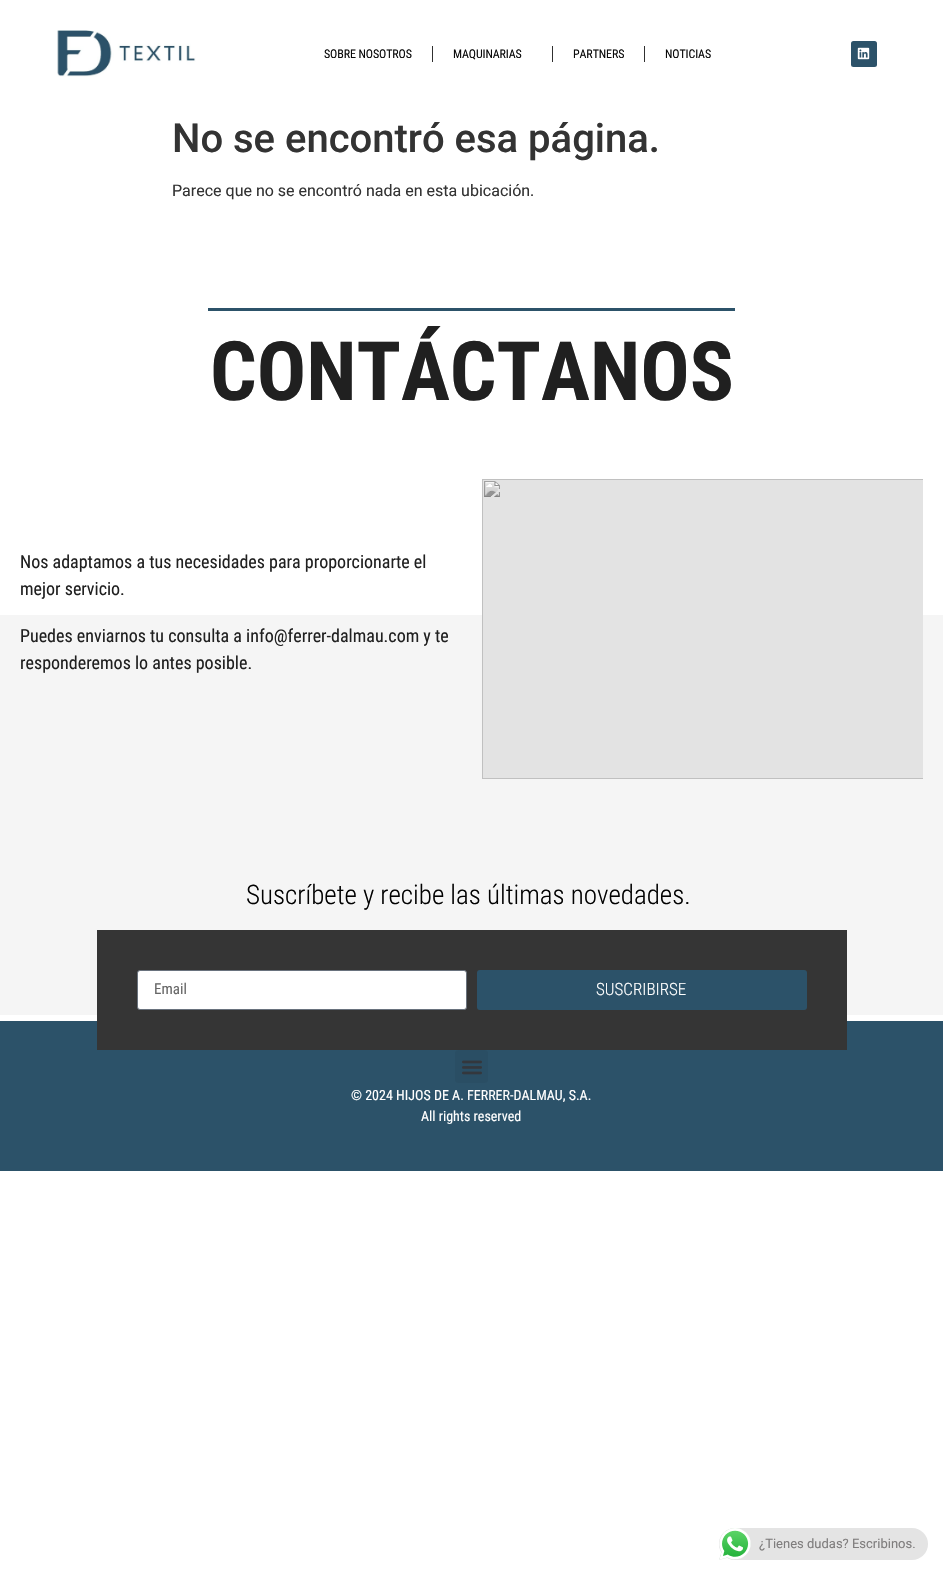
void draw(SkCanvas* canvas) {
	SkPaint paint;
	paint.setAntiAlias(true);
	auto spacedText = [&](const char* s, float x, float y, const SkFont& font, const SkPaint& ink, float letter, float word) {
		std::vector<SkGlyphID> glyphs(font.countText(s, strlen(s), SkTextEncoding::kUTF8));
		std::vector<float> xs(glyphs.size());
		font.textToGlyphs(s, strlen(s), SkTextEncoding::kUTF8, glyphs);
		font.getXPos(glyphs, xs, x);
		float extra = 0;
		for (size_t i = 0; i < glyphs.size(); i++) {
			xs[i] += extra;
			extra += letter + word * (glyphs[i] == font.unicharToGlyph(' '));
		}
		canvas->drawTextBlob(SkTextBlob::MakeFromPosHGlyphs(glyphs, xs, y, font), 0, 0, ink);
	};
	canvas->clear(0xffffffff);
	canvas->drawImageRect(SkImages::DeferredFromEncodedData(SkData::MakeFromFileName("img1.png")), SkRect::MakeXYWH(57, 30, 139, 47), SkSamplingOptions());
	SkFont f1(fontMgr->matchFamilyStyle("Roboto Condensed", SkFontStyle::Normal()), 12);
	f1.setSubpixel(true);
	paint.setColor(0xff0a0a0a);
	spacedText("SOBRE NOSOTROS", 324, 58, f1, paint, -0.1, 0);
	paint.setColor(0xff303030);
	canvas->drawRect(SkRect::MakeXYWH(432, 46, 1, 16), paint);
	paint.setColor(0xff0a0a0a);
	spacedText("MAQUINARIAS", 453, 58, f1, paint, -0.1, 0);
	paint.setColor(0xff303030);
	canvas->drawRect(SkRect::MakeXYWH(552, 46, 1, 16), paint);
	paint.setColor(0xff0a0a0a);
	spacedText("PARTNERS", 573, 58, f1, paint, -0.1, 0);
	paint.setColor(0xff303030);
	canvas->drawRect(SkRect::MakeXYWH(644, 46, 1, 16), paint);
	paint.setColor(0xff0a0a0a);
	spacedText("NOTICIAS", 665, 58, f1, paint, -0.1, 0);
	paint.setColor(0xff2c5269);
	canvas->drawRoundRect(SkRect::MakeXYWH(851, 41, 26, 26), 2.5, 2.5, paint);
	canvas->drawImageRect(SkImages::DeferredFromEncodedData(SkData::MakeFromFileName("img2.png")), SkRect::MakeXYWH(857, 47, 13, 13), SkSamplingOptions());
	SkFont f2(fontMgr->matchFamilyStyle("Roboto", SkFontStyle(500, SkFontStyle::kNormal_Width, SkFontStyle::kUpright_Slant)), 40);
	f2.setSubpixel(true);
	paint.setColor(0xff333333);
	canvas->drawString("No se encontró esa página.", 172, 152, f2, paint);
	SkFont f3(fontMgr->matchFamilyStyle("Roboto", SkFontStyle::Normal()), 16);
	f3.setSubpixel(true);
	canvas->drawString("Parece que no se encontró nada en esta ubicación.", 172, 196, f3, paint);
	paint.setColor(0xff2c5269);
	canvas->drawRect(SkRect::MakeXYWH(208, 308, 527, 3), paint);
	SkFont f4(fontMgr->matchFamilyStyle("Roboto Condensed", SkFontStyle::Bold()), 82);
	f4.setSubpixel(true);
	paint.setColor(0xff202020);
	canvas->drawString("CONTÁCTANOS", 210, 400, f4, paint);
	SkFont f5(fontMgr->matchFamilyStyle("Roboto Condensed", SkFontStyle::Normal()), 18);
	f5.setSubpixel(true);
	canvas->drawString("Nos adaptamos a tus necesidades para proporcionarte el", 20, 568, f5, paint);
	canvas->drawString("mejor servicio.", 20, 595, f5, paint);
	paint.setColor(0xfff5f5f5);
	canvas->drawRect(SkRect::MakeXYWH(0, 615, 943, 400), paint);
	paint.setColor(0xff202020);
	canvas->drawString("Puedes enviarnos tu consulta a info@ferrer-dalmau.com y te", 20, 642, f5, paint);
	canvas->drawString("responderemos lo antes posible.", 20, 669, f5, paint);
	canvas->drawImageRect(SkImages::DeferredFromEncodedData(SkData::MakeFromFileName("img3.png")), SkRect::MakeXYWH(482, 479, 441, 300), SkSamplingOptions());
	SkFont f6(fontMgr->matchFamilyStyle("Roboto Condensed", SkFontStyle(300, SkFontStyle::kNormal_Width, SkFontStyle::kUpright_Slant)), 27);
	f6.setSubpixel(true);
	paint.setColor(0xff020202);
	canvas->drawString("Suscríbete y recibe las últimas novedades.", 246, 904, f6, paint);
	paint.setColor(0xff2c5269);
	canvas->drawRect(SkRect::MakeXYWH(0, 1021, 943, 150), paint);
	paint.setColor(0xff353535);
	canvas->drawRect(SkRect::MakeXYWH(97, 930, 750, 120), paint);
	paint.setColor(0xffffffff);
	canvas->drawRoundRect(SkRect::MakeXYWH(137.5, 970.5, 329, 39), 2.5, 2.5, paint);
	paint.setStroke(true);
	paint.setStrokeWidth(1);
	paint.setColor(0xff69727d);
	canvas->drawRoundRect(SkRect::MakeXYWH(137.5, 970.5, 329, 39), 2.5, 2.5, paint);
	SkFont f7(fontMgr->matchFamilyStyle("Roboto Condensed", SkFontStyle::Normal()), 15);
	f7.setSubpixel(true);
	paint.setStroke(false);
	paint.setColor(0xff676767);
	canvas->drawString("Email", 154, 994, f7, paint);
	paint.setColor(0xff2c5269);
	canvas->drawRoundRect(SkRect::MakeXYWH(477, 970, 330, 40), 3, 3, paint);
	SkFont f8(fontMgr->matchFamilyStyle("Roboto Condensed", SkFontStyle(300, SkFontStyle::kNormal_Width, SkFontStyle::kUpright_Slant)), 17);
	f8.setSubpixel(true);
	paint.setColor(0xffffffff);
	canvas->drawString("SUSCRIBIRSE", 596, 995, f8, paint);
	paint.setColor(0xff2a4e64);
	canvas->drawRoundRect(SkRect::MakeXYWH(455, 1050, 33, 33), 3, 3, paint);
	canvas->drawImageRect(SkImages::DeferredFromEncodedData(SkData::MakeFromFileName("img4.png")), SkRect::MakeXYWH(462, 1060, 20, 15), SkSamplingOptions());
	SkFont f9(fontMgr->matchFamilyStyle("Roboto Condensed", SkFontStyle::Normal()), 14);
	f9.setSubpixel(true);
	paint.setColor(0xffffffff);
	canvas->drawString("© 2024 HIJOS DE A. FERRER-DALMAU, S.A.", 351, 1100, f9, paint);
	canvas->drawString("All rights reserved", 421, 1121, f9, paint);
	paint.setColor(0xffe4e4e4);
	canvas->drawRoundRect(SkRect::MakeXYWH(719, 1528, 209, 32), 16, 16, paint);
	canvas->drawImageRect(SkImages::DeferredFromEncodedData(SkData::MakeFromFileName("img5.png")), SkRect::MakeXYWH(719, 1528, 32, 32), SkSamplingOptions());
	SkFont f10(fontMgr->matchFamilyStyle("Roboto", SkFontStyle::Normal()), 13);
	f10.setSubpixel(true);
	paint.setColor(0xff7f7d7d);
	canvas->drawString("¿Tienes dudas? Escribinos.", 759, 1548, f10, paint);
}
